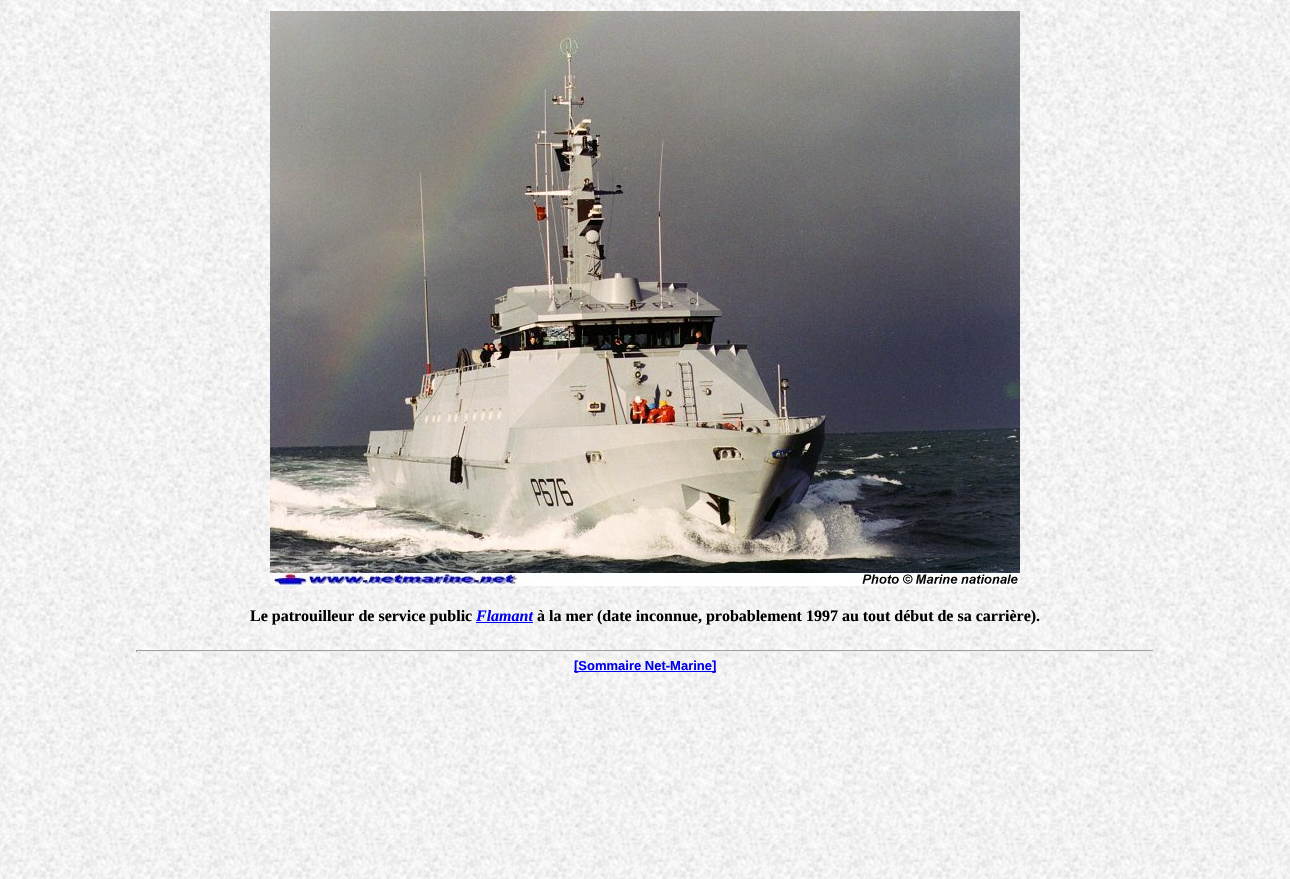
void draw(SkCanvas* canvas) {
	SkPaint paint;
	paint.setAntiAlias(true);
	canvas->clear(0xffffffff);
	canvas->drawImageRect(SkImages::DeferredFromEncodedData(SkData::MakeFromFileName("img1.png")), SkRect::MakeXYWH(0, 0, 1290, 879), SkSamplingOptions());
	canvas->drawImageRect(SkImages::DeferredFromEncodedData(SkData::MakeFromFileName("img2.png")), SkRect::MakeXYWH(270, 11, 750, 575), SkSamplingOptions());
	SkFont f1(fontMgr->matchFamilyStyle("Liberation Serif", SkFontStyle::Bold()), 16);
	f1.setSubpixel(true);
	paint.setColor(0xff000000);
	canvas->drawString("Le patrouilleur de service public", 250, 621, f1, paint);
	SkFont f2(fontMgr->matchFamilyStyle("Liberation Serif", SkFontStyle::BoldItalic()), 16);
	f2.setSubpixel(true);
	paint.setColor(0xff0000ee);
	canvas->drawString("Flamant", 476, 621, f2, paint);
	canvas->drawRect(SkRect::MakeXYWH(476, 622, 57, 1), paint);
	paint.setColor(0xff000000);
	canvas->drawString("à la mer (date inconnue, probablement 1997 au tout début de sa carrière).", 537, 621, f1, paint);
	paint.setColor(0xff9f9f9f);
	canvas->drawRect(SkRect::MakeXYWH(136, 650, 1018, 1), paint);
	paint.setColor(0xffeeeeee);
	canvas->drawRect(SkRect::MakeXYWH(1153, 650, 1, 2), paint);
	canvas->drawRect(SkRect::MakeXYWH(136, 651, 1018, 1), paint);
	paint.setColor(0xff9f9f9f);
	canvas->drawRect(SkRect::MakeXYWH(136, 650, 1, 2), paint);
	paint.setColor(0xff0000ee);
	canvas->drawRect(SkRect::MakeXYWH(574, 671, 142, 1), paint);
	SkFont f3(fontMgr->matchFamilyStyle("Liberation Sans", SkFontStyle::Bold()), 13);
	f3.setSubpixel(true);
	canvas->drawString("[Sommaire Net-Marine]", 574, 670, f3, paint);
}
